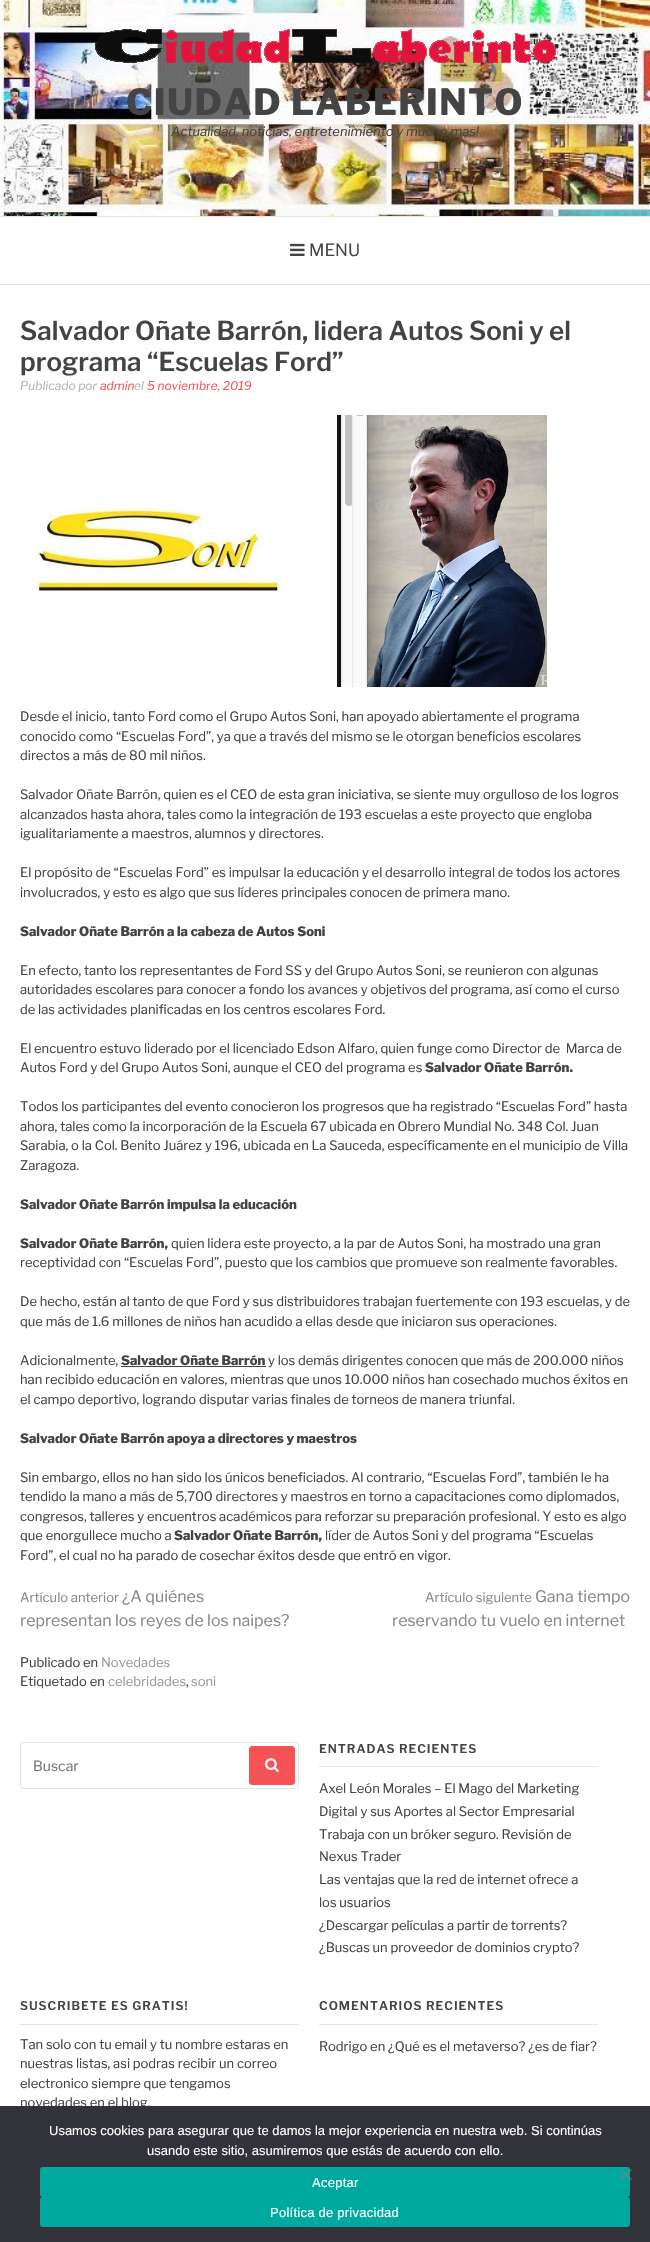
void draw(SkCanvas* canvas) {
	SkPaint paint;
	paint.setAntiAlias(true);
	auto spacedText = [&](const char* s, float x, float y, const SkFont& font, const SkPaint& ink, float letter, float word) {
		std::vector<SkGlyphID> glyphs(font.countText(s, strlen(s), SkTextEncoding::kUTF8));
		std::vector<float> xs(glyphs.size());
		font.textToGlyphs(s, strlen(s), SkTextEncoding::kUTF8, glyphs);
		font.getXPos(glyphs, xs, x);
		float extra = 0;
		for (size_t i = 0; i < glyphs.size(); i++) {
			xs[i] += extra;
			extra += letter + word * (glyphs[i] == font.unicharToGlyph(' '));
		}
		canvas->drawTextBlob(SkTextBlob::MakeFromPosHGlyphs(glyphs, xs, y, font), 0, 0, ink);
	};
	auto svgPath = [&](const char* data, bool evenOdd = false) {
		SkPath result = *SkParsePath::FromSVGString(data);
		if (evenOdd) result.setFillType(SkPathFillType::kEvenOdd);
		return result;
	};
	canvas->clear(0xffffffff);
	canvas->drawImageRect(SkImages::DeferredFromEncodedData(SkData::MakeFromFileName("img1.png")), SkRect::MakeXYWH(0, 0, 650, 216), SkSamplingOptions());
	canvas->drawImageRect(SkImages::DeferredFromEncodedData(SkData::MakeFromFileName("img2.png")), SkRect::MakeXYWH(95, 29, 461, 34), SkSamplingOptions());
	SkFont f1(fontMgr->matchFamilyStyle("Libre Franklin", SkFontStyle(800, SkFontStyle::kNormal_Width, SkFontStyle::kUpright_Slant)), 36);
	f1.setSubpixel(true);
	paint.setColor(0xff444444);
	spacedText("CIUDAD LABERINTO", 126, 115, f1, paint, 1.5, 0);
	SkFont f2(fontMgr->matchFamilyStyle("Libre Franklin", SkFontStyle::Italic()), 13);
	f2.setSubpixel(true);
	canvas->drawString("Actualidad, noticias, entretenimiento y mucho mas!", 171, 136, f2, paint);
	paint.setColor(0xffe6e6e6);
	canvas->drawRect(SkRect::MakeXYWH(0, 216, 650, 1), paint);
	canvas->drawRect(SkRect::MakeXYWH(0, 284, 650, 1), paint);
	canvas->drawImageRect(SkImages::DeferredFromEncodedData(SkData::MakeFromFileName("img3.png")), SkRect::MakeXYWH(290, 243, 15, 13), SkSamplingOptions());
	SkFont f3(fontMgr->matchFamilyStyle("Libre Franklin", SkFontStyle::Normal()), 17);
	f3.setSubpixel(true);
	paint.setColor(0xff444444);
	canvas->drawString("MENU", 309, 256, f3, paint);
	SkFont f4(fontMgr->matchFamilyStyle("Libre Franklin", SkFontStyle(600, SkFontStyle::kNormal_Width, SkFontStyle::kUpright_Slant)), 26);
	f4.setSubpixel(true);
	canvas->drawString("Salvador Oñate Barrón, lidera Autos Soni y el", 20, 340, f4, paint);
	canvas->drawString("programa “Escuelas Ford”", 20, 371, f4, paint);
	SkFont f5(fontMgr->matchFamilyStyle("Libre Franklin", SkFontStyle::Italic()), 12);
	f5.setSubpixel(true);
	paint.setColor(0xffb4b4b4);
	canvas->drawString("Publicado por", 20, 390, f5, paint);
	paint.setColor(0xfff75357);
	canvas->drawString("admin", 100, 390, f5, paint);
	paint.setColor(0xffb4b4b4);
	canvas->drawString("el", 134, 390, f5, paint);
	paint.setColor(0xfff75357);
	canvas->drawString("5 noviembre, 2019", 147, 390, f5, paint);
	canvas->drawImageRect(SkImages::DeferredFromEncodedData(SkData::MakeFromFileName("img4.png")), SkRect::MakeXYWH(34, 415, 513, 272), SkSamplingOptions());
	SkFont f6(fontMgr->matchFamilyStyle("Libre Franklin", SkFontStyle::Normal()), 13);
	f6.setSubpixel(true);
	paint.setColor(0xff444444);
	canvas->drawString("Desde el inicio, tanto Ford como el Grupo Autos Soni, han apoyado abiertamente el programa", 20, 721, f6, paint);
	canvas->drawString("conocido como “Escuelas Ford”, ya que a través del mismo se le otorgan beneficios escolares", 20, 741, f6, paint);
	canvas->drawString("directos a más de 80 mil niños.", 20, 760, f6, paint);
	canvas->drawString("Salvador Oñate Barrón, quien es el CEO de esta gran iniciativa, se siente muy orgulloso de los logros", 20, 799, f6, paint);
	canvas->drawString("alcanzados hasta ahora, tales como la integración de 193 escuelas a este proyecto que engloba", 20, 819, f6, paint);
	canvas->drawString("igualitariamente a maestros, alumnos y directores.", 20, 838, f6, paint);
	canvas->drawString("El propósito de “Escuelas Ford” es impulsar la educación y el desarrollo integral de todos los actores", 20, 877, f6, paint);
	canvas->drawString("involucrados, y esto es algo que sus líderes principales conocen de primera mano.", 20, 897, f6, paint);
	SkFont f7(fontMgr->matchFamilyStyle("Libre Franklin", SkFontStyle(800, SkFontStyle::kNormal_Width, SkFontStyle::kUpright_Slant)), 13);
	f7.setSubpixel(true);
	canvas->drawString("Salvador Oñate Barrón a la cabeza de Autos Soni", 20, 936, f7, paint);
	canvas->drawString("En efecto, tanto los representantes de Ford SS y del Grupo Autos Soni, se reunieron con algunas", 20, 975, f6, paint);
	canvas->drawString("autoridades escolares para conocer a fondo los avances y objetivos del programa, así como el curso", 20, 994, f6, paint);
	canvas->drawString("de las actividades planificadas en los centros escolares Ford.", 20, 1014, f6, paint);
	canvas->drawString("El encuentro estuvo liderado por el licenciado Edson Alfaro, quien funge como Director de  Marca de", 20, 1053, f6, paint);
	canvas->drawString("Autos Ford y del Grupo Autos Soni, aunque el CEO del programa es", 20, 1072, f6, paint);
	canvas->drawString("Salvador Oñate Barrón.", 425, 1072, f7, paint);
	canvas->drawString("Todos los participantes del evento conocieron los progresos que ha registrado “Escuelas Ford” hasta", 20, 1111, f6, paint);
	canvas->drawString("ahora, tales como la incorporación de la Escuela 67 ubicada en Obrero Mundial No. 348 Col. Juan", 20, 1131, f6, paint);
	canvas->drawString("Sarabia, o la Col. Benito Juárez y 196, ubicada en La Sauceda, específicamente en el municipio de Villa", 20, 1150, f6, paint);
	canvas->drawString("Zaragoza.", 20, 1170, f6, paint);
	canvas->drawString("Salvador Oñate Barrón impulsa la educación", 20, 1209, f7, paint);
	canvas->drawString("Salvador Oñate Barrón,", 20, 1248, f7, paint);
	canvas->drawString("quien lidera este proyecto, a la par de Autos Soni, ha mostrado una gran", 171, 1248, f6, paint);
	canvas->drawString("receptividad con “Escuelas Ford”, puesto que los cambios que promueve son realmente favorables.", 20, 1267, f6, paint);
	canvas->drawString("De hecho, están al tanto de que Ford y sus distribuidores trabajan fuertemente con 193 escuelas, y de", 20, 1306, f6, paint);
	canvas->drawString("que más de 1.6 millones de niños han acudido a ellas desde que iniciaron sus operaciones.", 20, 1326, f6, paint);
	canvas->drawString("Adicionalmente,", 20, 1365, f6, paint);
	canvas->drawString("Salvador Oñate Barrón", 121, 1365, f7, paint);
	canvas->drawRect(SkRect::MakeXYWH(121, 1366, 145, 1), paint);
	canvas->drawString("y los demás dirigentes conocen que más de 200.000 niños", 268, 1365, f6, paint);
	canvas->drawString("han recibido educación en valores, mientras que unos 10.000 niños han cosechado muchos éxitos en", 20, 1384, f6, paint);
	canvas->drawString("el campo deportivo, logrando disputar varias finales de torneos de manera triunfal.", 20, 1404, f6, paint);
	canvas->drawString("Salvador Oñate Barrón apoya a directores y maestros", 20, 1443, f7, paint);
	canvas->drawString("Sin embargo, ellos no han sido los únicos beneficiados. Al contrario, “Escuelas Ford”, también le ha", 20, 1482, f6, paint);
	canvas->drawString("tendido la mano a más de 5,700 directores y maestros en torno a capacitaciones como diplomados,", 20, 1501, f6, paint);
	canvas->drawString("congresos, talleres y encuentros académicos para reforzar su preparación profesional. Y esto es algo", 20, 1521, f6, paint);
	canvas->drawString("que enorgullece mucho a", 20, 1540, f6, paint);
	canvas->drawString("Salvador Oñate Barrón,", 174, 1540, f7, paint);
	canvas->drawString("líder de Autos Soni y del programa “Escuelas", 325, 1540, f6, paint);
	canvas->drawString("Ford”, el cual no ha parado de cosechar éxitos desde que entró en vigor.", 20, 1560, f6, paint);
	paint.setColor(0xff888888);
	canvas->drawString("Artículo anterior", 20, 1602, f6, paint);
	SkFont f8(fontMgr->matchFamilyStyle("Libre Franklin", SkFontStyle::Normal()), 16);
	f8.setSubpixel(true);
	canvas->drawString("¿A quiénes", 122, 1602, f8, paint);
	canvas->drawString("representan los reyes de los naipes?", 20, 1626, f8, paint);
	canvas->drawString("Artículo siguiente", 425, 1602, f6, paint);
	canvas->drawString("Gana tiempo", 535, 1602, f8, paint);
	canvas->drawString("reservando tu vuelo en internet", 392, 1626, f8, paint);
	paint.setColor(0xff444444);
	canvas->drawString("Publicado en", 20, 1667, f6, paint);
	paint.setColor(0xff999999);
	canvas->drawString("Novedades", 101, 1667, f6, paint);
	paint.setColor(0xff444444);
	canvas->drawString("Etiquetado en", 20, 1686, f6, paint);
	paint.setColor(0xff999999);
	canvas->drawString("celebridades", 108, 1686, f6, paint);
	paint.setColor(0xff444444);
	canvas->drawString(",", 186, 1686, f6, paint);
	paint.setColor(0xff999999);
	canvas->drawString("soni", 191, 1686, f6, paint);
	paint.setStroke(true);
	paint.setStrokeWidth(1);
	paint.setColor(0xffe3e3e3);
	canvas->drawRoundRect(SkRect::MakeXYWH(20.5, 1742.5, 278, 46), 2.5, 2.5, paint);
	SkFont f9(fontMgr->matchFamilyStyle("Libre Franklin", SkFontStyle::Normal()), 14);
	f9.setSubpixel(true);
	paint.setStroke(false);
	paint.setColor(0xff757575);
	canvas->drawString("Buscar", 33, 1771, f9, paint);
	paint.setColor(0xfff75357);
	canvas->drawRoundRect(SkRect::MakeXYWH(249.5, 1746.5, 45, 38), 2.5, 2.5, paint);
	paint.setStroke(true);
	canvas->drawRoundRect(SkRect::MakeXYWH(249.5, 1746.5, 45, 38), 2.5, 2.5, paint);
	canvas->drawImageRect(SkImages::DeferredFromEncodedData(SkData::MakeFromFileName("img5.png")), SkRect::MakeXYWH(265, 1758, 14, 15), SkSamplingOptions());
	paint.setStroke(false);
	paint.setColor(0xffe5e5e5);
	canvas->drawRect(SkRect::MakeXYWH(319, 1766, 279, 1), paint);
	SkFont f10(fontMgr->matchFamilyStyle("Libre Franklin", SkFontStyle(600, SkFontStyle::kNormal_Width, SkFontStyle::kUpright_Slant)), 12);
	f10.setSubpixel(true);
	paint.setColor(0xff444444);
	spacedText("ENTRADAS RECIENTES", 319, 1753, f10, paint, 1, 0);
	canvas->drawString("Axel León Morales – El Mago del Marketing", 319, 1793, f6, paint);
	canvas->drawString("Digital y sus Aportes al Sector Empresarial", 319, 1816, f6, paint);
	canvas->drawString("Trabaja con un bróker seguro. Revisión de", 319, 1839, f6, paint);
	canvas->drawString("Nexus Trader", 319, 1861, f6, paint);
	canvas->drawString("Las ventajas que la red de internet ofrece a", 319, 1884, f6, paint);
	canvas->drawString("los usuarios", 319, 1907, f6, paint);
	canvas->drawString("¿Descargar películas a partir de torrents?", 319, 1930, f6, paint);
	canvas->drawString("¿Buscas un proveedor de dominios crypto?", 319, 1952, f6, paint);
	paint.setColor(0xffe5e5e5);
	canvas->drawRect(SkRect::MakeXYWH(20, 2024, 279, 1), paint);
	paint.setColor(0xff444444);
	spacedText("SUSCRIBETE ES GRATIS!", 20, 2010, f10, paint, 1, 0);
	canvas->drawString("Tan solo con tu email y tu nombre estaras en", 20, 2049, f6, paint);
	canvas->drawString("nuestras listas, asi podras recibir un correo", 20, 2068, f6, paint);
	canvas->drawString("electronico siempre que tengamos", 20, 2088, f6, paint);
	canvas->drawString("novedades en el blog.", 20, 2107, f6, paint);
	paint.setColor(0xffe5e5e5);
	canvas->drawRect(SkRect::MakeXYWH(319, 2024, 279, 1), paint);
	paint.setColor(0xff444444);
	spacedText("COMENTARIOS RECIENTES", 319, 2010, f10, paint, 1, 0);
	canvas->drawString("Rodrigo en ¿Qué es el metaverso? ¿es de fiar?", 319, 2051, f6, paint);
	paint.setColor(0xff32323a);
	canvas->drawRect(SkRect::MakeXYWH(0, 2106, 650, 136), paint);
	SkFont f11(fontMgr->matchFamilyStyle("Liberation Sans", SkFontStyle::Normal()), 13);
	f11.setSubpixel(true);
	paint.setColor(0xffffffff);
	canvas->drawString("Usamos cookies para asegurar que te damos la mejor experiencia en nuestra web. Si continúas", 49, 2135, f11, paint);
	canvas->drawString("usando este sitio, asumiremos que estás de acuerdo con ello.", 147, 2155, f11, paint);
	paint.setColor(0xff00a99d);
	canvas->drawRoundRect(SkRect::MakeXYWH(40, 2167, 590, 30), 3, 3, paint);
	paint.setColor(0x80808080);
	canvas->drawPath(svgPath("M630.5 2168.5L632 2170L621.5 2180.5L620 2179Z"), paint);
	canvas->drawPath(svgPath("M620 2170L621.5 2168.5L632 2179L630.5 2180.5Z"), paint);
	paint.setColor(0xffffffff);
	spacedText("Aceptar", 312, 2187, f11, paint, 0.25, 0);
	paint.setColor(0xff00a99d);
	canvas->drawRoundRect(SkRect::MakeXYWH(40, 2197, 590, 30), 3, 3, paint);
	paint.setColor(0xffffffff);
	spacedText("Política de privacidad", 270, 2217, f11, paint, 0.25, 0);
}
